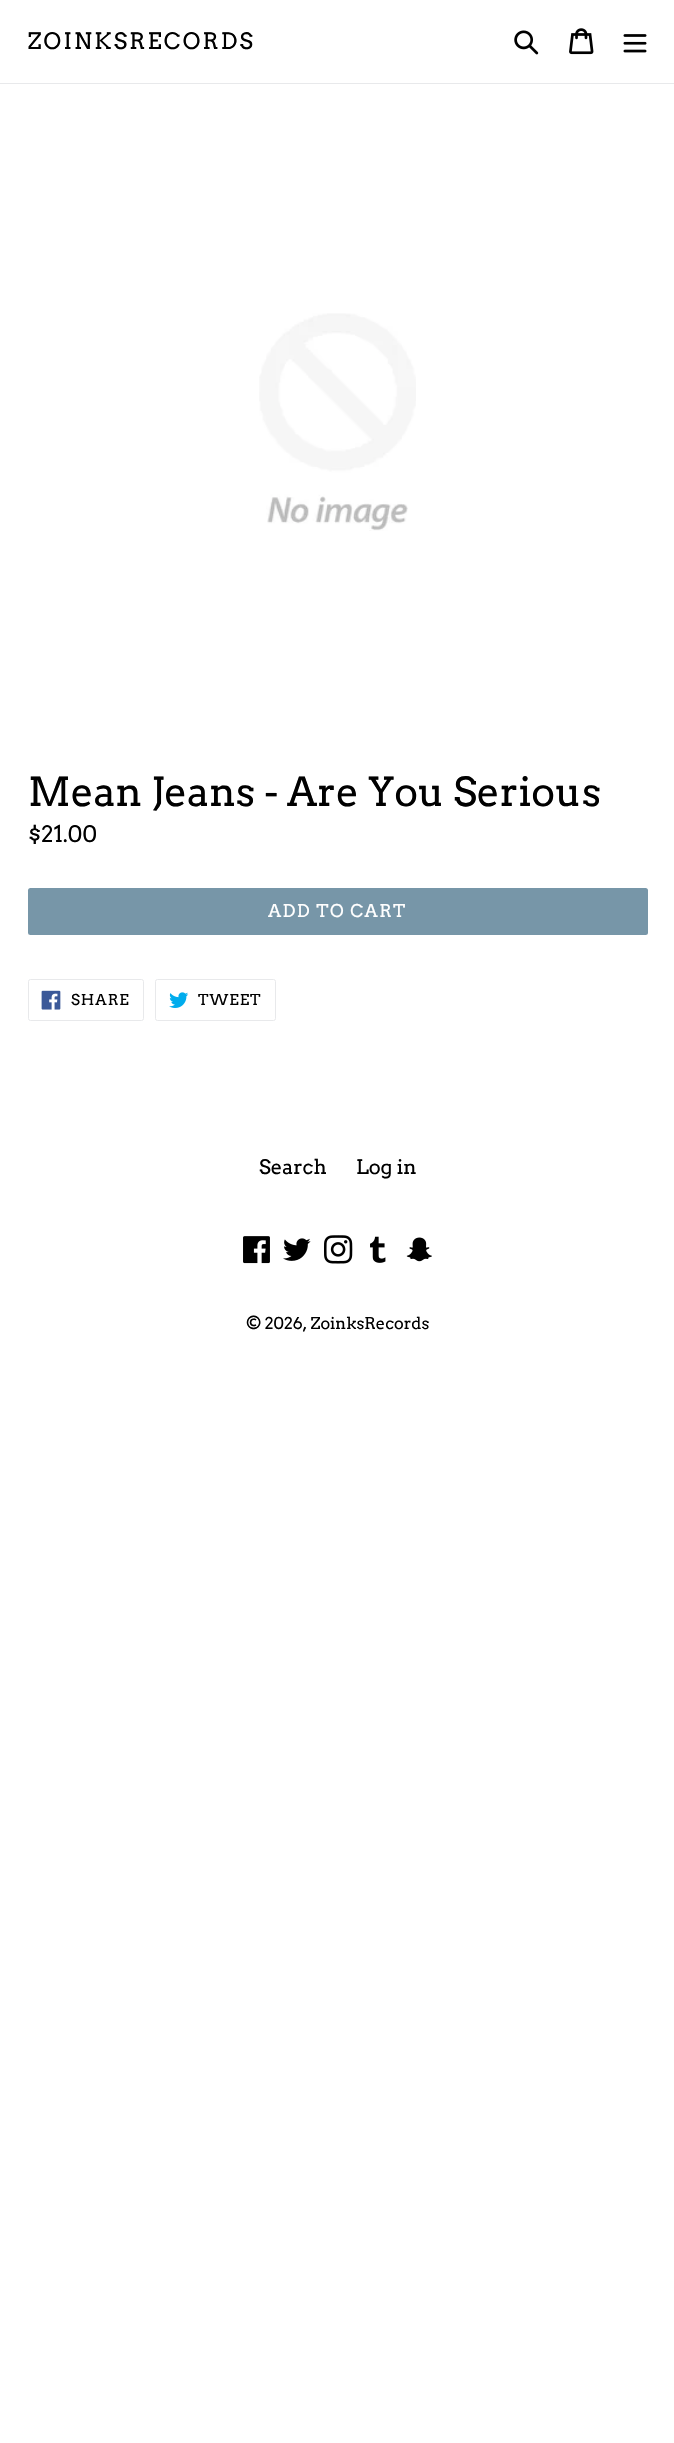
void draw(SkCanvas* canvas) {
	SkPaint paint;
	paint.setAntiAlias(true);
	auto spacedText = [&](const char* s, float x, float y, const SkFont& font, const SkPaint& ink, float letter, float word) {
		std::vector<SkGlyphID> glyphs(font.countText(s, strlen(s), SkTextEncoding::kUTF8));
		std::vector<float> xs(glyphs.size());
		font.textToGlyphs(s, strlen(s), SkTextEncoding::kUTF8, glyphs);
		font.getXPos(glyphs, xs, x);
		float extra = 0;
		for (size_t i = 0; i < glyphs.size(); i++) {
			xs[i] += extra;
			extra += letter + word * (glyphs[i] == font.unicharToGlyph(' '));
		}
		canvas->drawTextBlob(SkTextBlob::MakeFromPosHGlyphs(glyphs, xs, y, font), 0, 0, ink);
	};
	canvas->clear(0xffffffff);
	paint.setColor(0xffe8e9eb);
	canvas->drawRect(SkRect::MakeXYWH(0, 83, 674, 1), paint);
	SkFont f1(fontMgr->matchFamilyStyle("Arvo", SkFontStyle::Normal()), 22.5);
	f1.setSubpixel(true);
	paint.setColor(0xff000000);
	spacedText("ZOINKSRECORDS", 28, 49, f1, paint, 2.25, 0);
	canvas->drawImageRect(SkImages::DeferredFromEncodedData(SkData::MakeFromFileName("img1.png")), SkRect::MakeXYWH(514, 30, 25, 25), SkSamplingOptions());
	canvas->drawImageRect(SkImages::DeferredFromEncodedData(SkData::MakeFromFileName("img2.png")), SkRect::MakeXYWH(569, 28, 25, 27), SkSamplingOptions());
	canvas->drawImageRect(SkImages::DeferredFromEncodedData(SkData::MakeFromFileName("img3.png")), SkRect::MakeXYWH(623, 34, 24, 19), SkSamplingOptions());
	canvas->drawImageRect(SkImages::DeferredFromEncodedData(SkData::MakeFromFileName("img4.png")), SkRect::MakeXYWH(259, 313, 157, 218), SkSamplingOptions());
	SkFont f2(fontMgr->matchFamilyStyle("Arvo", SkFontStyle::Normal()), 40);
	f2.setSubpixel(true);
	canvas->drawString("Mean Jeans - Are You Serious", 28, 806, f2, paint);
	canvas->drawString("$21.00", 28, 842, f1, paint);
	paint.setColor(0xff7796a8);
	canvas->drawRoundRect(SkRect::MakeXYWH(28, 888, 620, 47), 2.5, 2.5, paint);
	SkFont f3(fontMgr->matchFamilyStyle("Arvo", SkFontStyle::Normal()), 17.5);
	f3.setSubpixel(true);
	paint.setColor(0xffffffff);
	spacedText("ADD TO CART", 268, 917, f3, paint, 1.4, 0);
	paint.setStroke(true);
	paint.setStrokeWidth(1);
	paint.setColor(0xffe8e9eb);
	canvas->drawRoundRect(SkRect::MakeXYWH(28.5, 979.5, 115, 41), 2, 2, paint);
	canvas->drawImageRect(SkImages::DeferredFromEncodedData(SkData::MakeFromFileName("img5.png")), SkRect::MakeXYWH(41, 990, 20, 20), SkSamplingOptions());
	SkFont f4(fontMgr->matchFamilyStyle("Arvo", SkFontStyle::Normal()), 15);
	f4.setSubpixel(true);
	paint.setStroke(false);
	paint.setColor(0xff000000);
	spacedText("SHARE", 71, 1005, f4, paint, 1, 0);
	paint.setStroke(true);
	paint.setColor(0xffe8e9eb);
	canvas->drawRoundRect(SkRect::MakeXYWH(155.5, 979.5, 120, 41), 2, 2, paint);
	canvas->drawImageRect(SkImages::DeferredFromEncodedData(SkData::MakeFromFileName("img6.png")), SkRect::MakeXYWH(169, 992, 20, 16), SkSamplingOptions());
	paint.setStroke(false);
	paint.setColor(0xff000000);
	spacedText("TWEET", 198, 1005, f4, paint, 1, 0);
	SkFont f5(fontMgr->matchFamilyStyle("Arvo", SkFontStyle::Normal()), 20);
	f5.setSubpixel(true);
	canvas->drawString("Search", 259, 1174, f5, paint);
	canvas->drawString("Log in", 356, 1174, f5, paint);
	canvas->drawImageRect(SkImages::DeferredFromEncodedData(SkData::MakeFromFileName("img7.png")), SkRect::MakeXYWH(243, 1236, 27, 28), SkSamplingOptions());
	canvas->drawImageRect(SkImages::DeferredFromEncodedData(SkData::MakeFromFileName("img8.png")), SkRect::MakeXYWH(283, 1238, 28, 23), SkSamplingOptions());
	canvas->drawImageRect(SkImages::DeferredFromEncodedData(SkData::MakeFromFileName("img9.png")), SkRect::MakeXYWH(324, 1235, 29, 29), SkSamplingOptions());
	canvas->drawImageRect(SkImages::DeferredFromEncodedData(SkData::MakeFromFileName("img10.png")), SkRect::MakeXYWH(370, 1236, 16, 27), SkSamplingOptions());
	canvas->drawImageRect(SkImages::DeferredFromEncodedData(SkData::MakeFromFileName("img11.png")), SkRect::MakeXYWH(406, 1237, 26, 25), SkSamplingOptions());
	SkFont f6(fontMgr->matchFamilyStyle("Arvo", SkFontStyle::Normal()), 16.25);
	f6.setSubpixel(true);
	canvas->drawString("© 2026, ZoinksRecords", 246, 1329, f6, paint);
}
